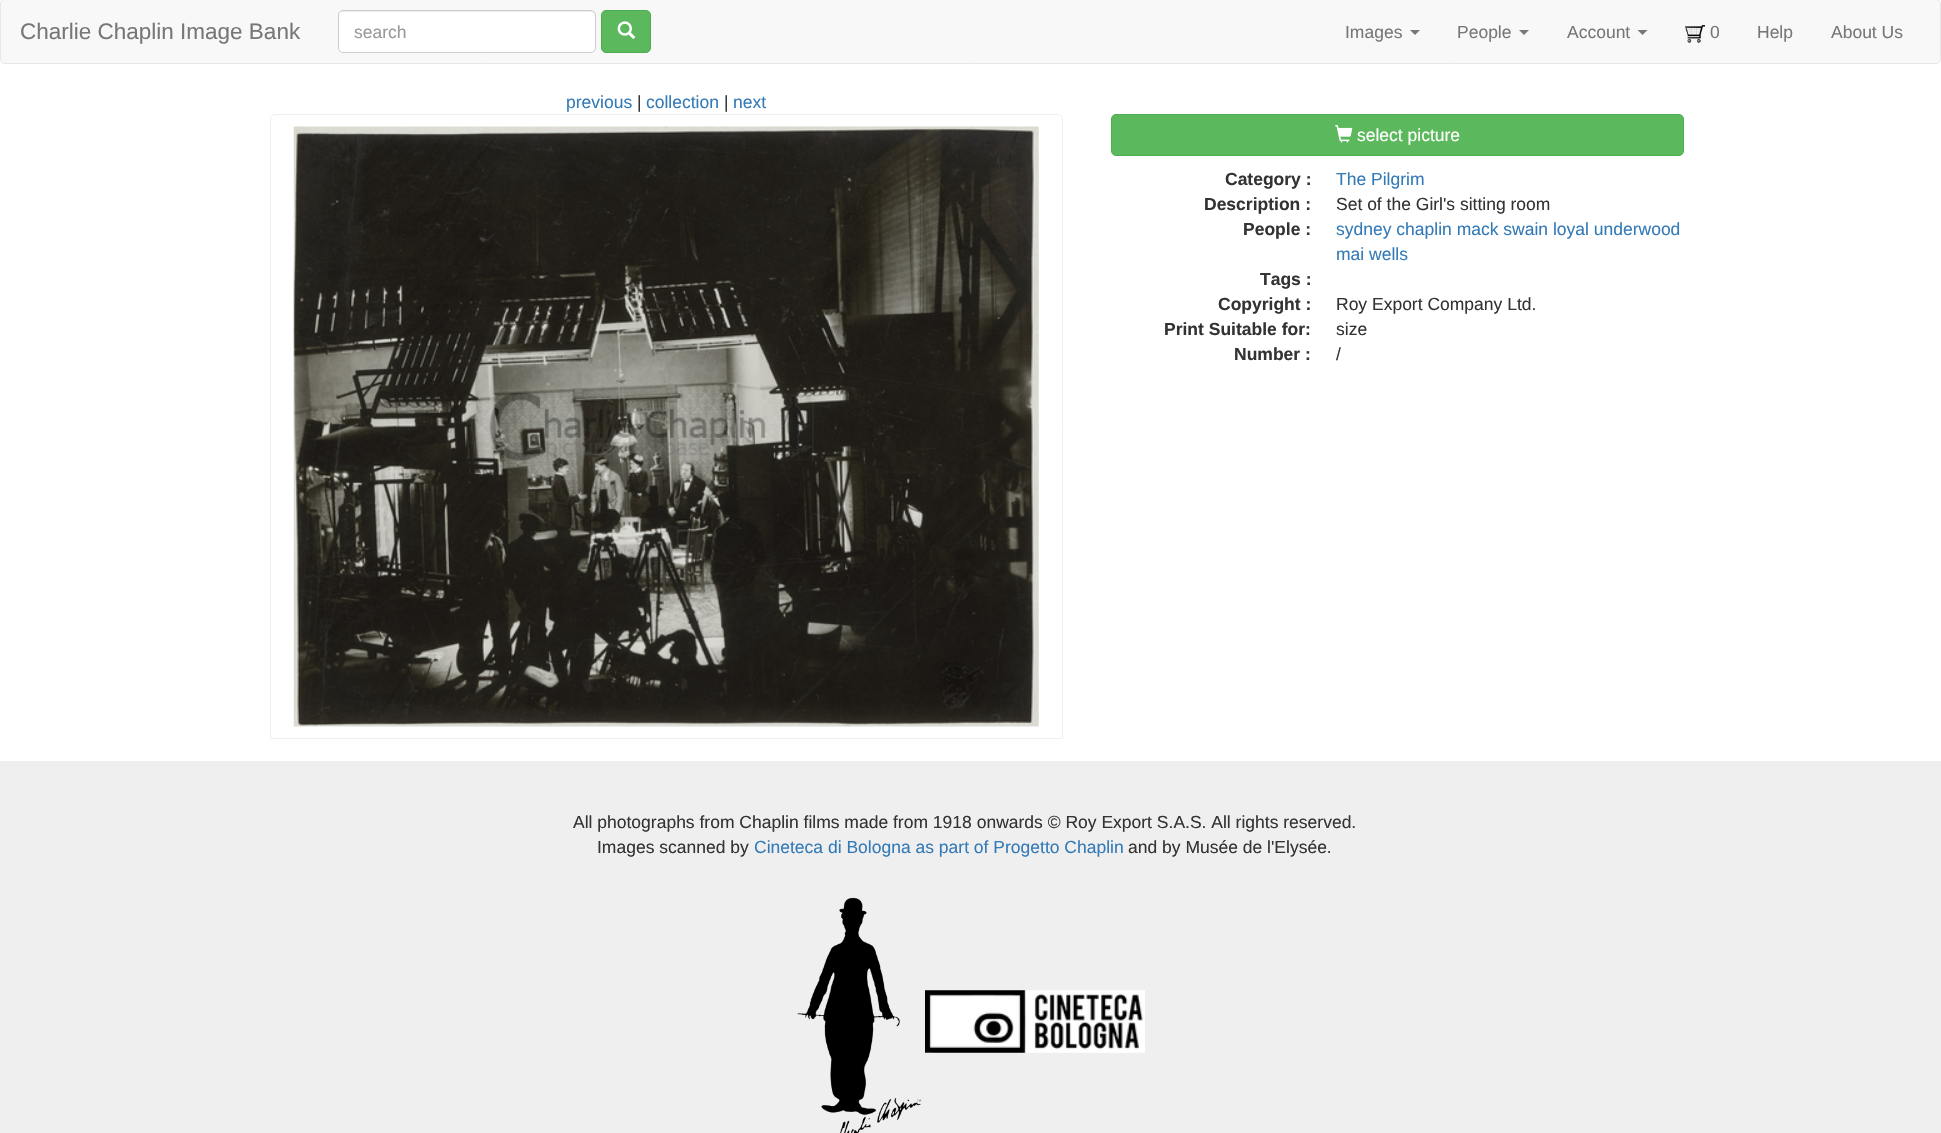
void draw(SkCanvas* canvas) {
	SkPaint paint;
	paint.setAntiAlias(true);
	auto svgPath = [&](const char* data, bool evenOdd = false) {
		SkPath result = *SkParsePath::FromSVGString(data);
		if (evenOdd) result.setFillType(SkPathFillType::kEvenOdd);
		return result;
	};
	canvas->clear(0xffffffff);
	paint.setColor(0xfff8f8f8);
	canvas->drawRoundRect(SkRect::MakeXYWH(0.5, -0.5, 1940, 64), 4.5, 4.5, paint);
	paint.setStroke(true);
	paint.setStrokeWidth(1);
	paint.setColor(0xffe7e7e7);
	canvas->drawRoundRect(SkRect::MakeXYWH(0.5, -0.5, 1940, 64), 4.5, 4.5, paint);
	SkFont f1(fontMgr->matchFamilyStyle("Liberation Sans", SkFontStyle::Normal()), 22.5);
	f1.setSubpixel(true);
	paint.setStroke(false);
	paint.setColor(0xff777777);
	canvas->drawString("Charlie Chaplin Image Bank", 20, 39, f1, paint);
	paint.setColor(0xffffffff);
	canvas->drawRoundRect(SkRect::MakeXYWH(338, 10, 258, 43), 5, 5, paint);
	paint.setColor(0xffececec);
	canvas->drawPath(svgPath("M342 12H592L594 14L595 16V15C595 13 593 11 591 11H343C341 11 339 13 339 15V16C339 14 340 12 342 12Z"), paint);
	paint.setStroke(true);
	paint.setColor(0xffcccccc);
	canvas->drawRoundRect(SkRect::MakeXYWH(338.5, 10.5, 257, 42), 4.5, 4.5, paint);
	SkFont f2(fontMgr->matchFamilyStyle("Liberation Sans", SkFontStyle::Normal()), 17.5);
	f2.setSubpixel(true);
	paint.setStroke(false);
	paint.setColor(0xff999999);
	canvas->drawString("search", 354, 38, f2, paint);
	paint.setColor(0xff5cb85c);
	canvas->drawRoundRect(SkRect::MakeXYWH(601.5, 10.5, 49, 42), 4.5, 4.5, paint);
	paint.setStroke(true);
	paint.setColor(0xff4cae4c);
	canvas->drawRoundRect(SkRect::MakeXYWH(601.5, 10.5, 49, 42), 4.5, 4.5, paint);
	canvas->drawImageRect(SkImages::DeferredFromEncodedData(SkData::MakeFromFileName("img1.png")), SkRect::MakeXYWH(617, 21, 19, 18), SkSamplingOptions());
	paint.setStroke(false);
	paint.setColor(0xff777777);
	canvas->drawString("Images", 1345, 38, f2, paint);
	canvas->drawPath(svgPath("M1410 30H1420L1415 35Z"), paint);
	canvas->drawString("People", 1457, 38, f2, paint);
	canvas->drawPath(svgPath("M1519 30H1529L1524 35Z"), paint);
	canvas->drawString("Account", 1567, 38, f2, paint);
	canvas->drawPath(svgPath("M1637.5 30H1647.5L1642.5 35Z"), paint);
	canvas->drawImageRect(SkImages::DeferredFromEncodedData(SkData::MakeFromFileName("img2.png")), SkRect::MakeXYWH(1685, 25, 20, 18), SkSamplingOptions());
	canvas->drawString("0", 1710, 38, f2, paint);
	canvas->drawString("Help", 1757, 38, f2, paint);
	canvas->drawString("About Us", 1831, 38, f2, paint);
	paint.setColor(0xff337ab7);
	canvas->drawString("previous", 566, 108, f2, paint);
	paint.setColor(0xff333333);
	canvas->drawString("|", 637, 108, f2, paint);
	paint.setColor(0xff337ab7);
	canvas->drawString("collection", 646, 108, f2, paint);
	paint.setColor(0xff333333);
	canvas->drawString("|", 724, 108, f2, paint);
	paint.setColor(0xff337ab7);
	canvas->drawString("next", 733, 108, f2, paint);
	paint.setStroke(true);
	paint.setColor(0xffefefef);
	canvas->drawPath(svgPath("M275 114.5H1058C1060.5 114.5 1062.5 116.5 1062.5 119V738.5H270.5V119C270.5 116.5 272.5 114.5 275 114.5Z"), paint);
	canvas->drawImageRect(SkImages::DeferredFromEncodedData(SkData::MakeFromFileName("img3.png")), SkRect::MakeXYWH(293, 126, 746, 601), SkSamplingOptions());
	paint.setStroke(false);
	paint.setColor(0xff5cb85c);
	canvas->drawRoundRect(SkRect::MakeXYWH(1111.5, 114.5, 572, 41), 4.5, 4.5, paint);
	paint.setStroke(true);
	paint.setColor(0xff4cae4c);
	canvas->drawRoundRect(SkRect::MakeXYWH(1111.5, 114.5, 572, 41), 4.5, 4.5, paint);
	canvas->drawImageRect(SkImages::DeferredFromEncodedData(SkData::MakeFromFileName("img4.png")), SkRect::MakeXYWH(1335, 125, 18, 18), SkSamplingOptions());
	paint.setStroke(false);
	paint.setColor(0xffffffff);
	canvas->drawString("select picture", 1357, 141, f2, paint);
	SkFont f3(fontMgr->matchFamilyStyle("Liberation Sans", SkFontStyle::Bold()), 17.5);
	f3.setSubpixel(true);
	paint.setColor(0xff333333);
	canvas->drawString("Category :", 1225, 185, f3, paint);
	paint.setColor(0xff337ab7);
	canvas->drawString("The Pilgrim", 1336, 185, f2, paint);
	paint.setColor(0xff333333);
	canvas->drawString("Description :", 1204, 210, f3, paint);
	canvas->drawString("Set of the Girl's sitting room", 1336, 210, f2, paint);
	canvas->drawString("People :", 1243, 235, f3, paint);
	paint.setColor(0xff337ab7);
	canvas->drawString("sydney chaplin mack swain loyal underwood", 1336, 235, f2, paint);
	canvas->drawString("mai wells", 1336, 260, f2, paint);
	paint.setColor(0xff333333);
	canvas->drawString("Tags :", 1260, 285, f3, paint);
	canvas->drawString("Copyright :", 1218, 310, f3, paint);
	canvas->drawString("Roy Export Company Ltd.", 1336, 310, f2, paint);
	canvas->drawString("Print Suitable for:", 1164, 335, f3, paint);
	canvas->drawString("size", 1336, 335, f2, paint);
	canvas->drawString("Number :", 1234, 360, f3, paint);
	canvas->drawString("/", 1336, 360, f2, paint);
	paint.setColor(0xffefefef);
	canvas->drawRect(SkRect::MakeXYWH(0, 761, 1941, 372), paint);
	paint.setColor(0xff333333);
	canvas->drawString("All photographs from Chaplin films made from 1918 onwards © Roy Export S.A.S. All rights reserved.", 573, 828, f2, paint);
	canvas->drawString("Images scanned by", 597, 853, f2, paint);
	paint.setColor(0xff337ab7);
	canvas->drawString("Cineteca di Bologna as part of Progetto Chaplin", 754, 853, f2, paint);
	paint.setColor(0xff333333);
	canvas->drawString("and by Musée de l'Elysée.", 1128, 853, f2, paint);
	canvas->drawImageRect(SkImages::DeferredFromEncodedData(SkData::MakeFromFileName("img5.png")), SkRect::MakeXYWH(797, 897, 125, 236), SkSamplingOptions());
	canvas->drawImageRect(SkImages::DeferredFromEncodedData(SkData::MakeFromFileName("img6.png")), SkRect::MakeXYWH(925, 990, 220, 63), SkSamplingOptions());
}
